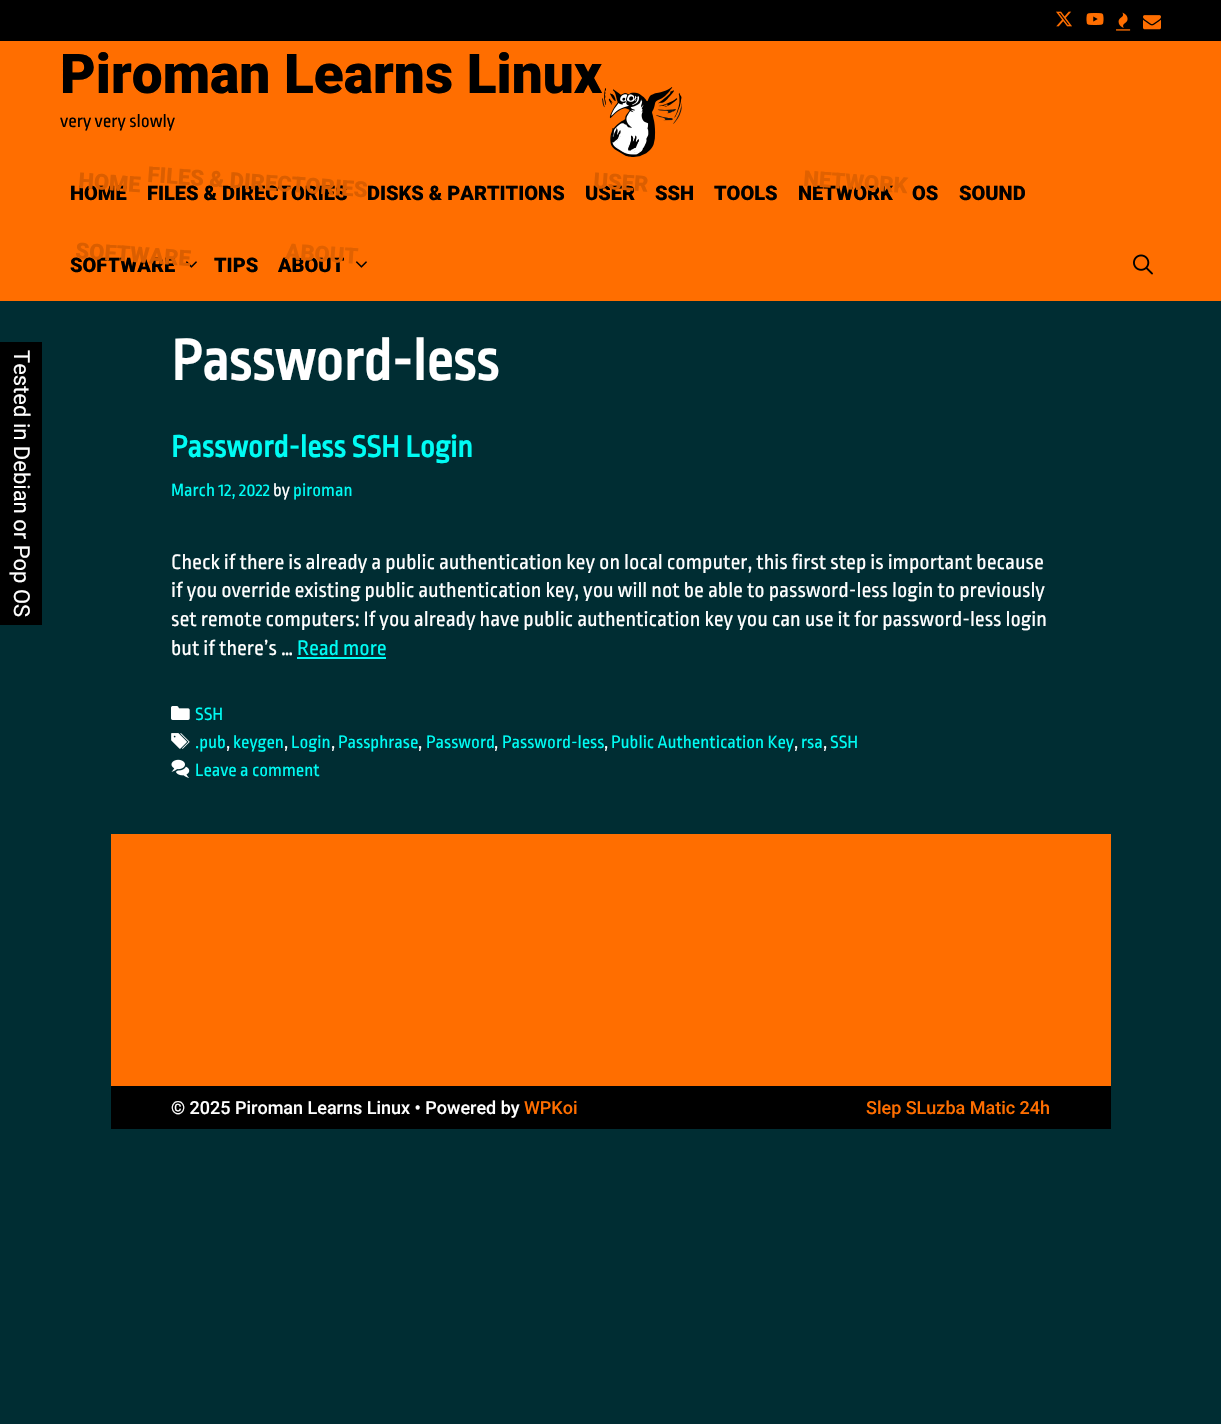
void draw(SkCanvas* canvas) {
	SkPaint paint;
	paint.setAntiAlias(true);
	canvas->clear(0xff002d33);
	paint.setColor(0xff000000);
	canvas->drawRect(SkRect::MakeXYWH(0, 0, 1221, 41), paint);
	canvas->drawImageRect(SkImages::DeferredFromEncodedData(SkData::MakeFromFileName("img1.png")), SkRect::MakeXYWH(1056, 11, 16, 16), SkSamplingOptions());
	canvas->drawImageRect(SkImages::DeferredFromEncodedData(SkData::MakeFromFileName("img2.png")), SkRect::MakeXYWH(1086, 13, 18, 12), SkSamplingOptions());
	canvas->drawImageRect(SkImages::DeferredFromEncodedData(SkData::MakeFromFileName("img3.png")), SkRect::MakeXYWH(1116, 12, 15, 19), SkSamplingOptions());
	canvas->drawImageRect(SkImages::DeferredFromEncodedData(SkData::MakeFromFileName("img4.png")), SkRect::MakeXYWH(1143, 15, 18, 15), SkSamplingOptions());
	paint.setColor(0xffff6e00);
	canvas->drawRect(SkRect::MakeXYWH(0, 41, 1221, 260), paint);
	canvas->drawImageRect(SkImages::DeferredFromEncodedData(SkData::MakeFromFileName("img5.png")), SkRect::MakeXYWH(602, 87, 80, 70), SkSamplingOptions());
	SkFont f1(fontMgr->matchFamilyStyle("Roboto", SkFontStyle(900, SkFontStyle::kNormal_Width, SkFontStyle::kUpright_Slant)), 55);
	f1.setSubpixel(true);
	paint.setColor(0xff000000);
	canvas->drawString("Piroman Learns Linux", 60, 93, f1, paint);
	SkFont f2(fontMgr->matchFamilyStyle("Ropa Sans", SkFontStyle::Normal()), 19);
	f2.setSubpixel(true);
	canvas->drawString("very very slowly", 60, 127, f2, paint);
	SkFont f3(fontMgr->matchFamilyStyle("Roboto", SkFontStyle(900, SkFontStyle::kNormal_Width, SkFontStyle::kUpright_Slant)), 20);
	f3.setSubpixel(true);
	canvas->drawString("HOME", 70, 200, f3, paint);
	SkFont f4(fontMgr->matchFamilyStyle("Roboto", SkFontStyle(900, SkFontStyle::kNormal_Width, SkFontStyle::kUpright_Slant)), 22);
	f4.setSubpixel(true);
	paint.setColor(0xffdb5e00);
	canvas->save();
	canvas->rotate(4, 78, 188);
	canvas->drawString("HOME", 78, 188, f4, paint);
	canvas->restore();
	paint.setColor(0xff000000);
	canvas->drawString("FILES & DIRECTORIES", 147, 200, f3, paint);
	paint.setColor(0xffdb5e00);
	canvas->save();
	canvas->rotate(4, 147, 182);
	canvas->drawString("FILES & DIRECTORIES", 147, 182, f4, paint);
	canvas->restore();
	paint.setColor(0xff000000);
	canvas->drawString("DISKS & PARTITIONS", 367, 200, f3, paint);
	canvas->drawString("USER", 585, 200, f3, paint);
	paint.setColor(0xffdb5e00);
	canvas->save();
	canvas->rotate(4, 593, 188);
	canvas->drawString("USER", 593, 188, f4, paint);
	canvas->restore();
	paint.setColor(0xff000000);
	canvas->drawString("SSH", 655, 200, f3, paint);
	canvas->drawString("TOOLS", 714, 200, f3, paint);
	canvas->drawString("NETWORK", 798, 200, f3, paint);
	paint.setColor(0xffe16100);
	canvas->save();
	canvas->rotate(4, 803, 186);
	canvas->drawString("NETWORK", 803, 186, f4, paint);
	canvas->restore();
	paint.setColor(0xff000000);
	canvas->drawString("OS", 912, 200, f3, paint);
	canvas->drawString("SOUND", 959, 200, f3, paint);
	canvas->drawString("SOFTWARE", 70, 272, f3, paint);
	canvas->drawImageRect(SkImages::DeferredFromEncodedData(SkData::MakeFromFileName("img6.png")), SkRect::MakeXYWH(185, 261, 12, 7), SkSamplingOptions());
	paint.setColor(0xffdb5e00);
	canvas->save();
	canvas->rotate(4, 75, 258);
	canvas->drawString("SOFTWARE", 75, 258, f4, paint);
	canvas->restore();
	paint.setColor(0xff000000);
	canvas->drawString("TIPS", 214, 272, f3, paint);
	canvas->drawString("ABOUT", 278, 272, f3, paint);
	canvas->drawImageRect(SkImages::DeferredFromEncodedData(SkData::MakeFromFileName("img6.png")), SkRect::MakeXYWH(355, 261, 12, 7), SkSamplingOptions());
	paint.setColor(0xffe16100);
	canvas->save();
	canvas->rotate(4, 285, 259);
	canvas->drawString("ABOUT", 285, 259, f4, paint);
	canvas->restore();
	canvas->drawImageRect(SkImages::DeferredFromEncodedData(SkData::MakeFromFileName("img7.png")), SkRect::MakeXYWH(1133, 254, 20, 21), SkSamplingOptions());
	paint.setColor(0xff000000);
	canvas->drawRect(SkRect::MakeXYWH(0, 342, 42, 283), paint);
	SkFont f5(fontMgr->matchFamilyStyle("Roboto", SkFontStyle::Normal()), 22);
	f5.setSubpixel(true);
	paint.setColor(0xffffffff);
	canvas->save();
	canvas->rotate(90, 14, 350);
	canvas->drawString("Tested in Debian or Pop OS", 14, 350, f5, paint);
	canvas->restore();
	SkFont f6(fontMgr->matchFamilyStyle("Ropa Sans", SkFontStyle::Bold()), 60);
	f6.setSubpixel(true);
	canvas->drawString("Password-less", 171, 380, f6, paint);
	SkFont f7(fontMgr->matchFamilyStyle("Ropa Sans", SkFontStyle::Bold()), 32);
	f7.setSubpixel(true);
	paint.setColor(0xff00fcf4);
	canvas->drawString("Password-less SSH Login", 171, 457, f7, paint);
	SkFont f8(fontMgr->matchFamilyStyle("Ropa Sans", SkFontStyle::Normal()), 18.75);
	f8.setSubpixel(true);
	canvas->drawString("March 12, 2022", 171, 496, f8, paint);
	paint.setColor(0xffffffff);
	canvas->drawString("by", 273, 496, f8, paint);
	paint.setColor(0xff00fcf4);
	canvas->drawString("piroman", 293, 496, f8, paint);
	SkFont f9(fontMgr->matchFamilyStyle("Ropa Sans", SkFontStyle::Normal()), 22);
	f9.setSubpixel(true);
	paint.setColor(0xffffffff);
	canvas->drawString("Check if there is already a public authentication key on local computer, this first step is important because", 171, 569, f9, paint);
	canvas->drawString("if you override existing public authentication key, you will not be able to password-less login to previously", 171, 597, f9, paint);
	canvas->drawString("set remote computers: If you already have public authentication key you can use it for password-less login", 171, 626, f9, paint);
	canvas->drawString("but if there’s …", 171, 655, f9, paint);
	paint.setColor(0xff00fcf4);
	canvas->drawString("Read more", 297, 655, f9, paint);
	canvas->drawRect(SkRect::MakeXYWH(297, 657, 89, 2), paint);
	canvas->drawImageRect(SkImages::DeferredFromEncodedData(SkData::MakeFromFileName("img8.png")), SkRect::MakeXYWH(171, 706, 19, 14), SkSamplingOptions());
	canvas->drawString("SSH", 195, 720, f8, paint);
	canvas->drawImageRect(SkImages::DeferredFromEncodedData(SkData::MakeFromFileName("img9.png")), SkRect::MakeXYWH(171, 733, 19, 16), SkSamplingOptions());
	canvas->drawString(".pub", 195, 748, f8, paint);
	paint.setColor(0xffffffff);
	canvas->drawString(",", 226, 748, f8, paint);
	paint.setColor(0xff00fcf4);
	canvas->drawString("keygen", 233, 748, f8, paint);
	paint.setColor(0xffffffff);
	canvas->drawString(",", 284, 748, f8, paint);
	paint.setColor(0xff00fcf4);
	canvas->drawString("Login", 291, 748, f8, paint);
	paint.setColor(0xffffffff);
	canvas->drawString(",", 331, 748, f8, paint);
	paint.setColor(0xff00fcf4);
	canvas->drawString("Passphrase", 338, 748, f8, paint);
	paint.setColor(0xffffffff);
	canvas->drawString(",", 418, 748, f8, paint);
	paint.setColor(0xff00fcf4);
	canvas->drawString("Password", 426, 748, f8, paint);
	paint.setColor(0xffffffff);
	canvas->drawString(",", 494, 748, f8, paint);
	paint.setColor(0xff00fcf4);
	canvas->drawString("Password-less", 502, 748, f8, paint);
	paint.setColor(0xffffffff);
	canvas->drawString(",", 604, 748, f8, paint);
	paint.setColor(0xff00fcf4);
	canvas->drawString("Public Authentication Key", 611, 748, f8, paint);
	paint.setColor(0xffffffff);
	canvas->drawString(",", 794, 748, f8, paint);
	paint.setColor(0xff00fcf4);
	canvas->drawString("rsa", 801, 748, f8, paint);
	paint.setColor(0xffffffff);
	canvas->drawString(",", 823, 748, f8, paint);
	paint.setColor(0xff00fcf4);
	canvas->drawString("SSH", 830, 748, f8, paint);
	canvas->drawImageRect(SkImages::DeferredFromEncodedData(SkData::MakeFromFileName("img10.png")), SkRect::MakeXYWH(171, 759, 19, 19), SkSamplingOptions());
	canvas->drawString("Leave a comment", 195, 776, f8, paint);
	paint.setColor(0xffff6e00);
	canvas->drawRect(SkRect::MakeXYWH(111, 834, 1000, 252), paint);
	paint.setColor(0xff000000);
	canvas->drawRect(SkRect::MakeXYWH(111, 1086, 1000, 43), paint);
	SkFont f10(fontMgr->matchFamilyStyle("Roboto", SkFontStyle(500, SkFontStyle::kNormal_Width, SkFontStyle::kUpright_Slant)), 18);
	f10.setSubpixel(true);
	paint.setColor(0xffffffff);
	canvas->drawString("© 2025 Piroman Learns Linux • Powered by", 171, 1114, f10, paint);
	paint.setColor(0xffff6e00);
	canvas->drawString("WPKoi", 524, 1114, f10, paint);
	canvas->drawString("Slep SLuzba Matic 24h", 866, 1114, f10, paint);
}
